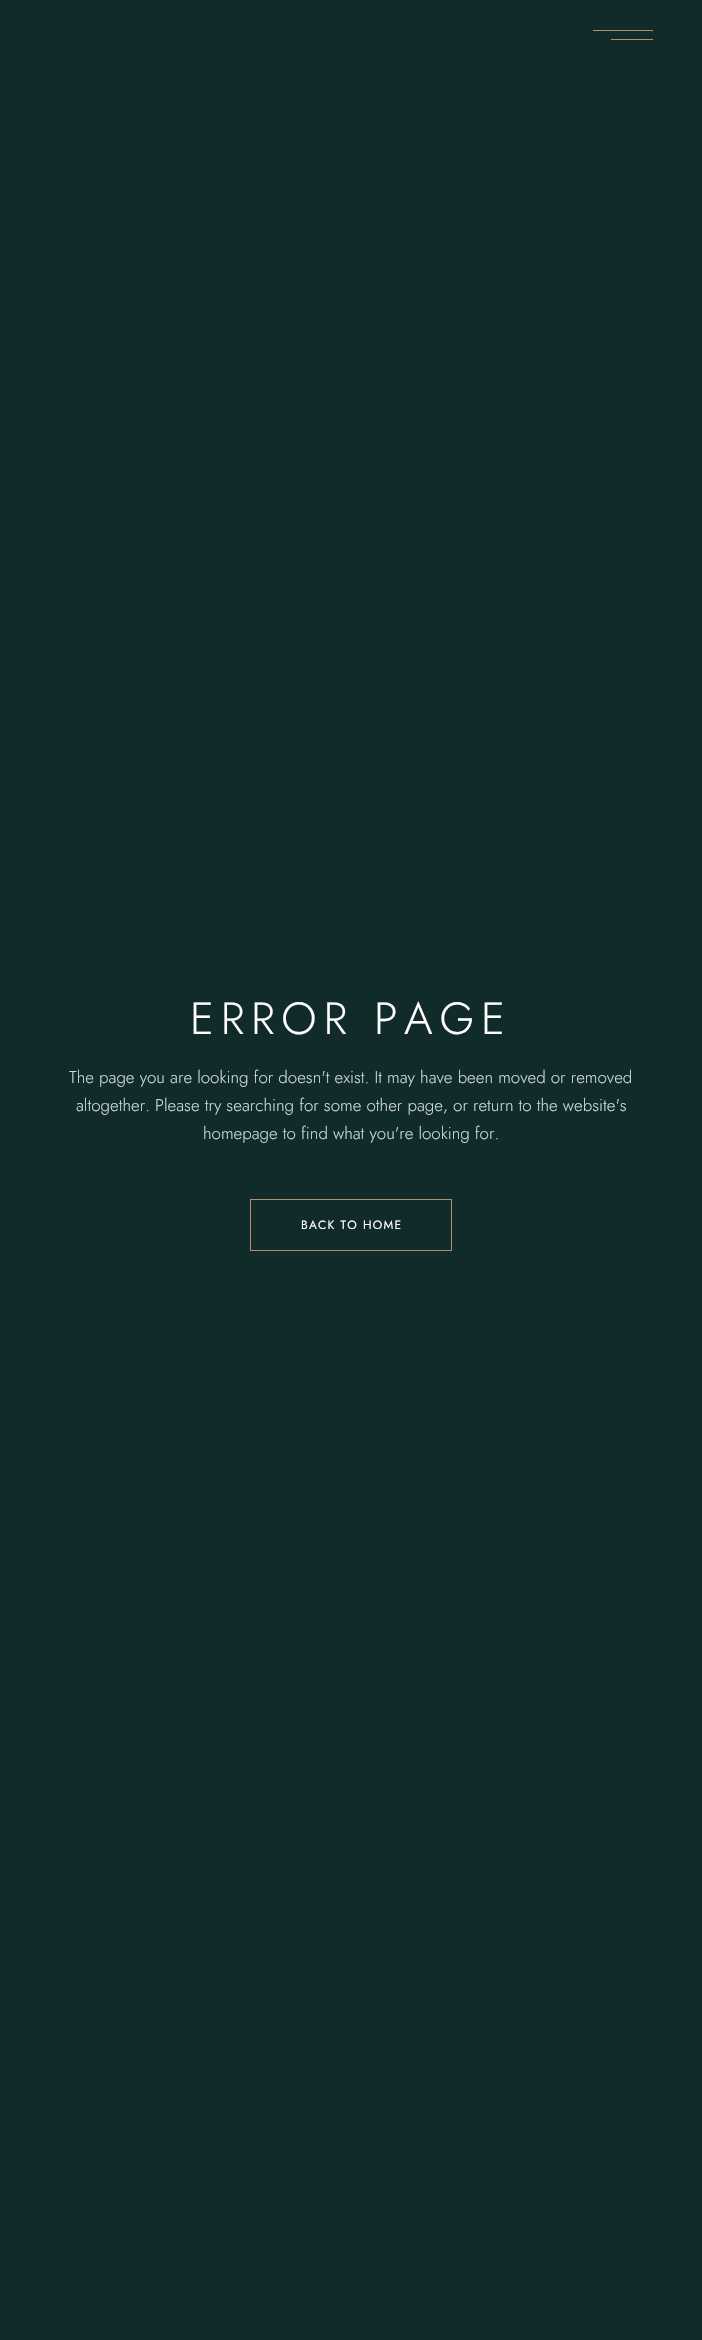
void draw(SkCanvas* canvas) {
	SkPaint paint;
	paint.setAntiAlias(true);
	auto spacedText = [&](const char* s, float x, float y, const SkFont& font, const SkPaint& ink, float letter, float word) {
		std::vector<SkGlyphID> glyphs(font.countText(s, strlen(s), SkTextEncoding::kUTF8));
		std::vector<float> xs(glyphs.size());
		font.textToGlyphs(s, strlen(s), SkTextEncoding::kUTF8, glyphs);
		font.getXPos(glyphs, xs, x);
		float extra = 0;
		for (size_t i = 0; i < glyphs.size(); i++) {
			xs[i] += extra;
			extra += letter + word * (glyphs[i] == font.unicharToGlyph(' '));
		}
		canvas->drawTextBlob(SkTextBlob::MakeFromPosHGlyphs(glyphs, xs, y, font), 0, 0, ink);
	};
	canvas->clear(0xff102b2a);
	paint.setColor(0xffb58c67);
	canvas->drawRect(SkRect::MakeXYWH(593, 30, 60, 1), paint);
	canvas->drawRect(SkRect::MakeXYWH(611, 39, 42, 1), paint);
	SkFont f1(fontMgr->matchFamilyStyle("Jost", SkFontStyle(300, SkFontStyle::kNormal_Width, SkFontStyle::kUpright_Slant)), 45);
	f1.setSubpixel(true);
	paint.setColor(0xffffffff);
	spacedText("ERROR PAGE", 190, 1034, f1, paint, 6.75, 0);
	SkFont f2(fontMgr->matchFamilyStyle("Jost", SkFontStyle(300, SkFontStyle::kNormal_Width, SkFontStyle::kUpright_Slant)), 17);
	f2.setSubpixel(true);
	paint.setColor(0xffced8d8);
	canvas->drawString("The page you are looking for doesn't exist. It may have been moved or removed", 69, 1083, f2, paint);
	canvas->drawString("altogether. Please try searching for some other page, or return to the website's", 76, 1111, f2, paint);
	canvas->drawString("homepage to find what you're looking for.", 203, 1139, f2, paint);
	paint.setStroke(true);
	paint.setStrokeWidth(1);
	paint.setColor(0xffb58c67);
	canvas->drawRect(SkRect::MakeXYWH(250.5, 1199.5, 201, 51), paint);
	SkFont f3(fontMgr->matchFamilyStyle("Jost", SkFontStyle::Normal()), 12);
	f3.setSubpixel(true);
	paint.setStroke(false);
	paint.setColor(0xffffffff);
	spacedText("BACK TO HOME", 301, 1229, f3, paint, 1.25, 0);
}
